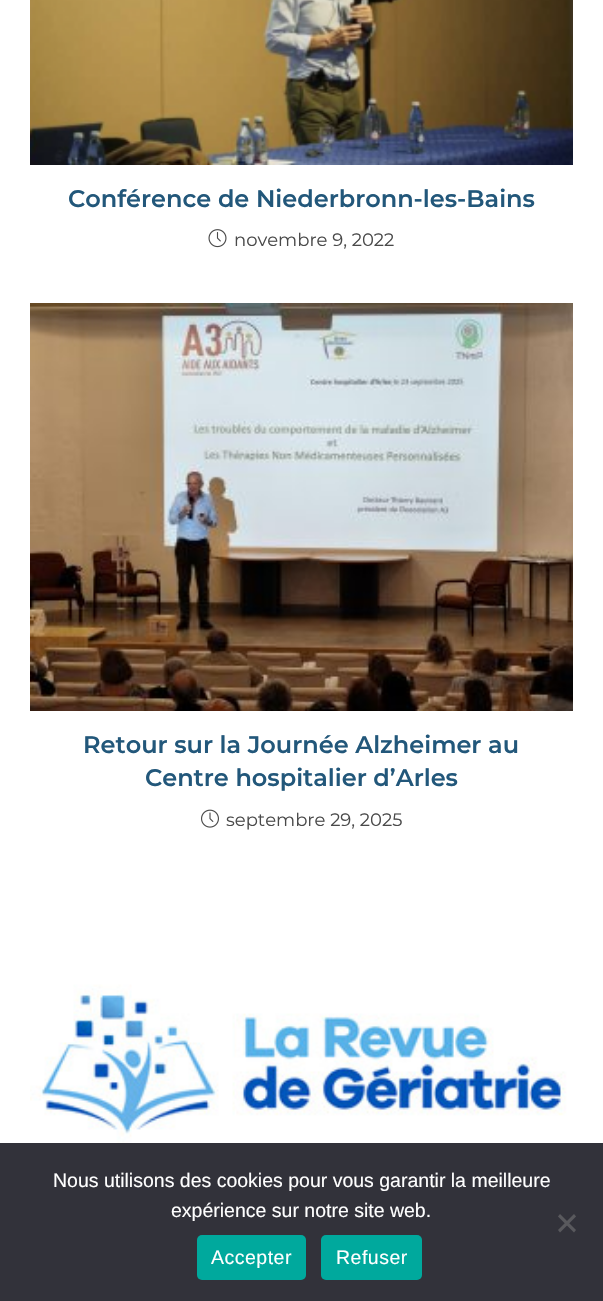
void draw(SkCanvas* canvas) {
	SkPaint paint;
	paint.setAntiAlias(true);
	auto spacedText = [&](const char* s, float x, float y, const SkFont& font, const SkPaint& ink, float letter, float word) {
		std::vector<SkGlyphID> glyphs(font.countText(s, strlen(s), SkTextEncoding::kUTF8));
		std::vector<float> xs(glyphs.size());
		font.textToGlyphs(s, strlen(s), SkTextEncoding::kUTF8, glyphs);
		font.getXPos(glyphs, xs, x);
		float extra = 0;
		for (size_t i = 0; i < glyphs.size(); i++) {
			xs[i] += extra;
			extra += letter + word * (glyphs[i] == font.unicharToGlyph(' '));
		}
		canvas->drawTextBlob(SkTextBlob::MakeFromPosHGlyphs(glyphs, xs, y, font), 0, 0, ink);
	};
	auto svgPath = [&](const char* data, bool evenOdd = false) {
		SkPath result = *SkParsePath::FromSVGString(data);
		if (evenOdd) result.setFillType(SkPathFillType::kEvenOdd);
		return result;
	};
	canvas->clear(0xffffffff);
	canvas->drawImageRect(SkImages::DeferredFromEncodedData(SkData::MakeFromFileName("img1.png")), SkRect::MakeXYWH(30, 0, 543, 165), SkSamplingOptions());
	SkFont f1(fontMgr->matchFamilyStyle("Montserrat", SkFontStyle(600, SkFontStyle::kNormal_Width, SkFontStyle::kUpright_Slant)), 24);
	f1.setSubpixel(true);
	paint.setColor(0xff22577a);
	canvas->drawString("Conférence de Niederbronn-les-Bains", 68, 207, f1, paint);
	canvas->drawImageRect(SkImages::DeferredFromEncodedData(SkData::MakeFromFileName("img2.png")), SkRect::MakeXYWH(208, 229, 19, 19), SkSamplingOptions());
	SkFont f2(fontMgr->matchFamilyStyle("Montserrat", SkFontStyle::Normal()), 18);
	f2.setSubpixel(true);
	paint.setColor(0xff4a4a4a);
	canvas->drawString("novembre 9, 2022", 234, 246, f2, paint);
	canvas->drawImageRect(SkImages::DeferredFromEncodedData(SkData::MakeFromFileName("img3.png")), SkRect::MakeXYWH(30, 303, 543, 408), SkSamplingOptions());
	paint.setColor(0xff22577a);
	canvas->drawString("Retour sur la Journée Alzheimer au", 83, 753, f1, paint);
	canvas->drawString("Centre hospitalier d’Arles", 145, 786, f1, paint);
	canvas->drawImageRect(SkImages::DeferredFromEncodedData(SkData::MakeFromFileName("img4.png")), SkRect::MakeXYWH(201, 809, 18, 19), SkSamplingOptions());
	paint.setColor(0xff4a4a4a);
	canvas->drawString("septembre 29, 2025", 226, 826, f2, paint);
	canvas->drawImageRect(SkImages::DeferredFromEncodedData(SkData::MakeFromFileName("img5.png")), SkRect::MakeXYWH(30, 884, 543, 259), SkSamplingOptions());
	paint.setColor(0xff32323a);
	canvas->drawRect(SkRect::MakeXYWH(0, 1143, 603, 158), paint);
	SkFont f3(fontMgr->matchFamilyStyle("Liberation Sans", SkFontStyle::Normal()), 19.5);
	f3.setSubpixel(true);
	paint.setColor(0xffffffff);
	canvas->drawString("Nous utilisons des cookies pour vous garantir la meilleure", 53, 1187, f3, paint);
	canvas->drawString("expérience sur notre site web.", 171, 1217, f3, paint);
	paint.setColor(0xff59595d);
	canvas->drawPath(svgPath("M574 1214L576 1216.5L560 1232.5L558 1230Z"), paint);
	canvas->drawPath(svgPath("M558 1216.5L560 1214L576 1230L574 1232.5Z"), paint);
	paint.setColor(0xff00a99d);
	canvas->drawRoundRect(SkRect::MakeXYWH(197, 1235, 109, 45), 5, 5, paint);
	paint.setColor(0xffffffff);
	spacedText("Accepter", 211, 1264, f3, paint, 0.5, 0);
	paint.setColor(0xff00a99d);
	canvas->drawRoundRect(SkRect::MakeXYWH(321, 1235, 101, 45), 5, 5, paint);
	paint.setColor(0xffffffff);
	spacedText("Refuser", 336, 1264, f3, paint, 0.5, 0);
}
